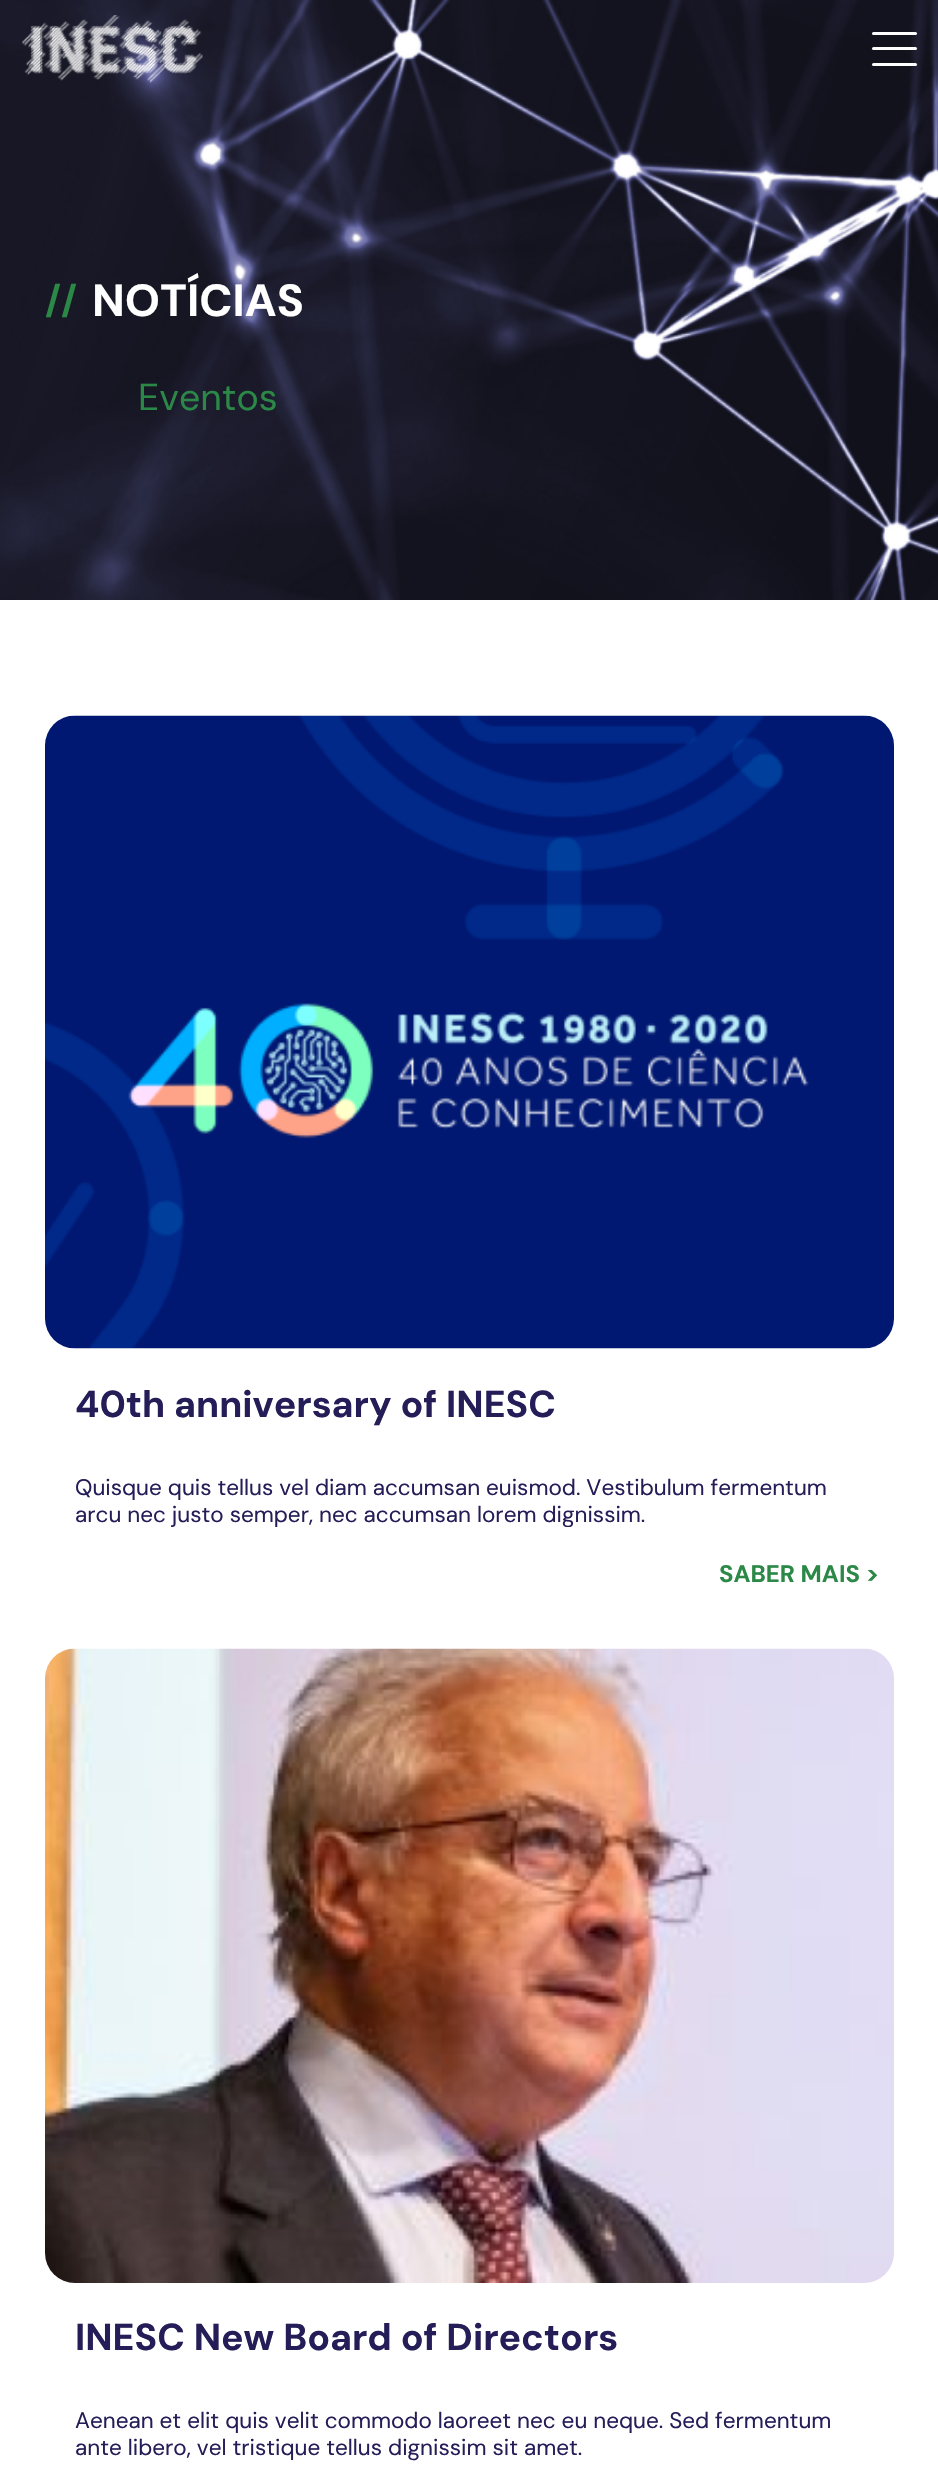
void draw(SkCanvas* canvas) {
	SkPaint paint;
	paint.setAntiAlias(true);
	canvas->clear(0xffffffff);
	canvas->drawImageRect(SkImages::DeferredFromEncodedData(SkData::MakeFromFileName("img2.png")), SkRect::MakeXYWH(0, 0, 938, 600), SkSamplingOptions());
	canvas->drawImageRect(SkImages::DeferredFromEncodedData(SkData::MakeFromFileName("img1.png")), SkRect::MakeXYWH(22, 15, 181, 68), SkSamplingOptions());
	paint.setColor(0xffffffff);
	canvas->drawRoundRect(SkRect::MakeXYWH(872, 32, 45, 3), 1.5, 1.5, paint);
	canvas->drawRoundRect(SkRect::MakeXYWH(872, 47, 45, 3), 1.5, 1.5, paint);
	canvas->drawRoundRect(SkRect::MakeXYWH(872, 63, 45, 3), 1.5, 1.5, paint);
	SkFont f1(fontMgr->matchFamilyStyle("DM Sans", SkFontStyle::Bold()), 37.5);
	f1.setSubpixel(true);
	paint.setColor(0xff2b8846);
	canvas->drawString("//", 45, 313, f1, paint);
	SkFont f2(fontMgr->matchFamilyStyle("DM Sans", SkFontStyle::Bold()), 45);
	f2.setSubpixel(true);
	paint.setColor(0xffffffff);
	canvas->drawString("NOTÍCIAS", 92, 316, f2, paint);
	SkFont f3(fontMgr->matchFamilyStyle("DM Sans", SkFontStyle::Normal()), 37.5);
	f3.setSubpixel(true);
	paint.setColor(0xff2b8846);
	canvas->drawString("Eventos", 138, 410, f3, paint);
	canvas->drawImageRect(SkImages::DeferredFromEncodedData(SkData::MakeFromFileName("img3.png")), SkRect::MakeXYWH(45, 715, 849, 634), SkSamplingOptions());
	paint.setColor(0xff251d57);
	canvas->drawString("40th anniversary of INESC", 75, 1417, f1, paint);
	SkFont f4(fontMgr->matchFamilyStyle("DM Sans", SkFontStyle::Normal()), 22.5);
	f4.setSubpixel(true);
	canvas->drawString("Quisque quis tellus vel diam accumsan euismod. Vestibulum fermentum", 75, 1495, f4, paint);
	canvas->save();
	canvas->clipRect(SkRect::MakeXYWH(45, 1473, 849, 54));
	canvas->drawString("arcu nec justo semper, nec accumsan lorem dignissim.", 75, 1522, f4, paint);
	canvas->restore();
	SkFont f5(fontMgr->matchFamilyStyle("DM Sans", SkFontStyle::Bold()), 24);
	f5.setSubpixel(true);
	paint.setColor(0xff2b8846);
	canvas->drawString("SABER MAIS >", 719, 1582, f5, paint);
	canvas->drawImageRect(SkImages::DeferredFromEncodedData(SkData::MakeFromFileName("img4.png")), SkRect::MakeXYWH(45, 1648, 849, 635), SkSamplingOptions());
	paint.setColor(0xff251d57);
	canvas->drawString("INESC New Board of Directors", 75, 2350, f1, paint);
	canvas->drawString("Aenean et elit quis velit commodo laoreet nec eu neque. Sed fermentum", 75, 2428, f4, paint);
	canvas->drawString("ante libero, vel tristique tellus dignissim sit amet.", 75, 2455, f4, paint);
}
